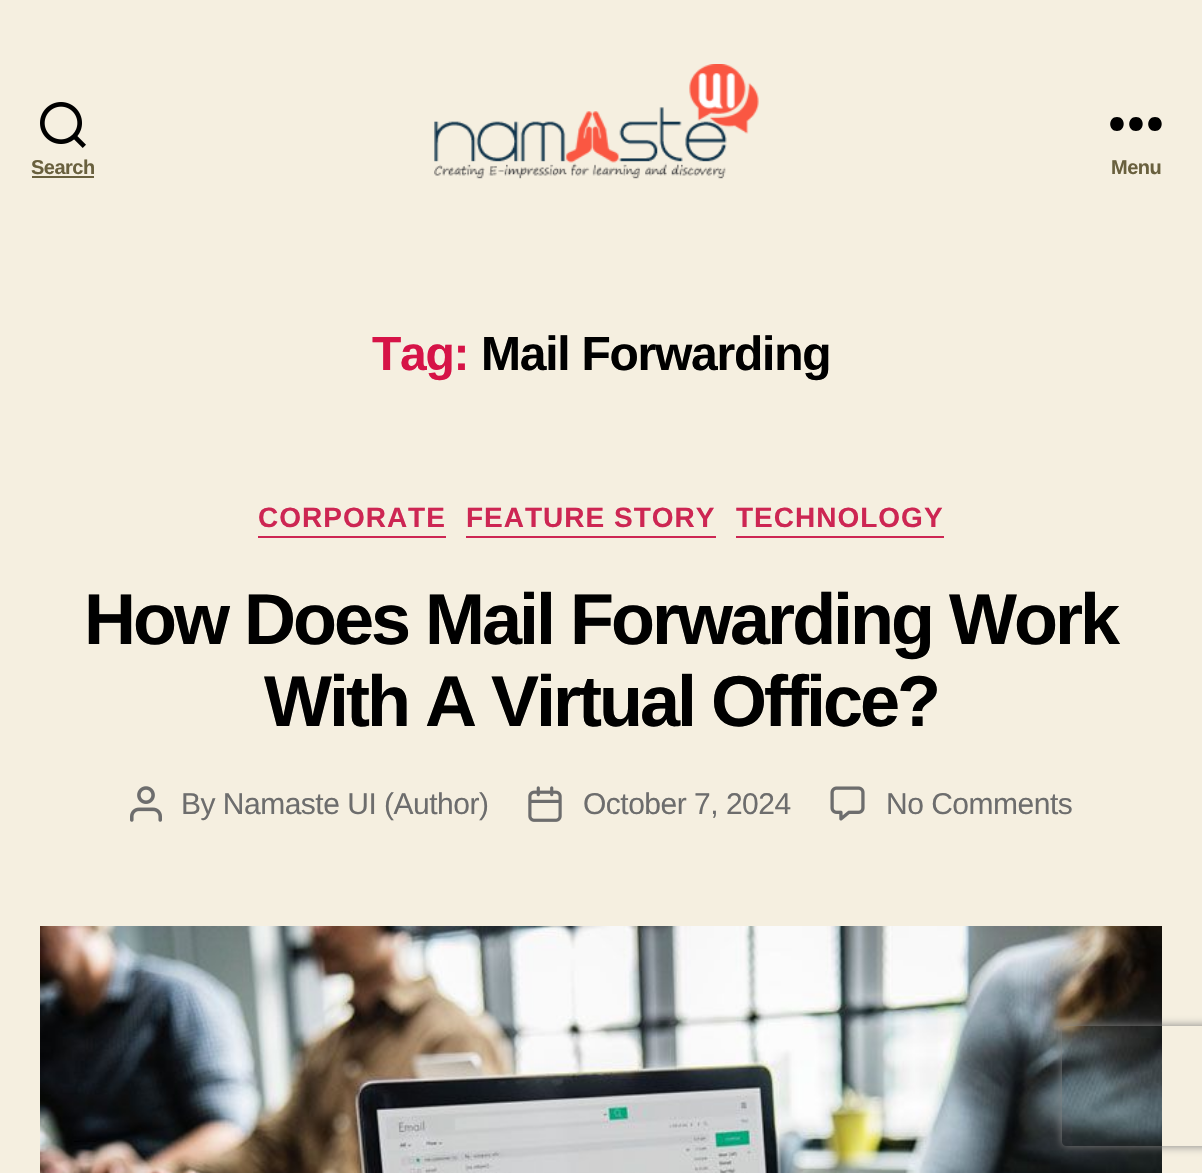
void draw(SkCanvas* canvas) {
	SkPaint paint;
	paint.setAntiAlias(true);
	auto spacedText = [&](const char* s, float x, float y, const SkFont& font, const SkPaint& ink, float letter, float word) {
		std::vector<SkGlyphID> glyphs(font.countText(s, strlen(s), SkTextEncoding::kUTF8));
		std::vector<float> xs(glyphs.size());
		font.textToGlyphs(s, strlen(s), SkTextEncoding::kUTF8, glyphs);
		font.getXPos(glyphs, xs, x);
		float extra = 0;
		for (size_t i = 0; i < glyphs.size(); i++) {
			xs[i] += extra;
			extra += letter + word * (glyphs[i] == font.unicharToGlyph(' '));
		}
		canvas->drawTextBlob(SkTextBlob::MakeFromPosHGlyphs(glyphs, xs, y, font), 0, 0, ink);
	};
	auto svgPath = [&](const char* data, bool evenOdd = false) {
		SkPath result = *SkParsePath::FromSVGString(data);
		if (evenOdd) result.setFillType(SkPathFillType::kEvenOdd);
		return result;
	};
	canvas->clear(0xfff5efe0);
	canvas->drawImageRect(SkImages::DeferredFromEncodedData(SkData::MakeFromFileName("img1.png")), SkRect::MakeXYWH(40, 102, 46, 46), SkSamplingOptions());
	SkFont f1(fontMgr->matchFamilyStyle("Liberation Sans", SkFontStyle::Bold()), 20);
	f1.setSubpixel(true);
	paint.setColor(0xff69603e);
	spacedText("Search", 31, 174, f1, paint, -0.5, 0);
	canvas->drawRect(SkRect::MakeXYWH(32, 176, 62, 2), paint);
	canvas->drawImageRect(SkImages::DeferredFromEncodedData(SkData::MakeFromFileName("img2.png")), SkRect::MakeXYWH(434, 64, 325, 115), SkSamplingOptions());
	paint.setColor(0xff000000);
	canvas->drawPath(svgPath("M1117 131C1108 131 1108 117 1117 117C1126 117 1126 131 1117 131ZM1136 131C1127 131 1127 117 1136 117C1145 117 1145 131 1136 131ZM1155 131C1146 131 1146 117 1155 117C1164 117 1164 131 1155 131Z", true), paint);
	paint.setColor(0xff69603e);
	spacedText("Menu", 1111, 174, f1, paint, -0.5, 0);
	SkFont f2(fontMgr->matchFamilyStyle("Liberation Sans", SkFontStyle::Bold()), 48);
	f2.setSubpixel(true);
	paint.setColor(0xffd61347);
	spacedText("Tag:", 372, 370, f2, paint, -1.25, 0);
	paint.setColor(0xff000000);
	spacedText("Mail Forwarding", 481, 370, f2, paint, -1.25, 0);
	paint.setColor(0xffcd2653);
	canvas->drawRect(SkRect::MakeXYWH(258, 536, 188, 2), paint);
	SkFont f3(fontMgr->matchFamilyStyle("Liberation Sans", SkFontStyle::Bold()), 28);
	f3.setSubpixel(true);
	spacedText("CORPORATE", 258, 527, f3, paint, 1, 0);
	canvas->drawRect(SkRect::MakeXYWH(466, 536, 250, 2), paint);
	spacedText("FEATURE STORY", 466, 527, f3, paint, 1, 0);
	canvas->drawRect(SkRect::MakeXYWH(736, 536, 208, 2), paint);
	spacedText("TECHNOLOGY", 736, 527, f3, paint, 1, 0);
	SkFont f4(fontMgr->matchFamilyStyle("Liberation Sans", SkFontStyle::Bold()), 72);
	f4.setSubpixel(true);
	paint.setColor(0xff000000);
	spacedText("How Does Mail Forwarding Work", 84, 644, f4, paint, -3, 0);
	spacedText("With A Virtual Office?", 264, 726, f4, paint, -3, 0);
	canvas->drawImageRect(SkImages::DeferredFromEncodedData(SkData::MakeFromFileName("img3.png")), SkRect::MakeXYWH(130, 786, 32, 36), SkSamplingOptions());
	SkFont f5(fontMgr->matchFamilyStyle("Liberation Sans", SkFontStyle::Normal()), 30);
	f5.setSubpixel(true);
	paint.setColor(0xff6d6d6d);
	spacedText("By Namaste UI (Author)", 181, 814, f5, paint, -0.5, 0);
	canvas->drawImageRect(SkImages::DeferredFromEncodedData(SkData::MakeFromFileName("img4.png")), SkRect::MakeXYWH(528, 786, 34, 36), SkSamplingOptions());
	spacedText("October 7, 2024", 583, 814, f5, paint, -0.5, 0);
	canvas->drawImageRect(SkImages::DeferredFromEncodedData(SkData::MakeFromFileName("img5.png")), SkRect::MakeXYWH(830, 786, 35, 35), SkSamplingOptions());
	spacedText("No Comments", 886, 814, f5, paint, -0.5, 0);
	canvas->drawImageRect(SkImages::DeferredFromEncodedData(SkData::MakeFromFileName("img6.png")), SkRect::MakeXYWH(40, 926, 1122, 247), SkSamplingOptions());
	canvas->save();
	canvas->clipPath(svgPath("M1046 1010H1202V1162H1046ZM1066 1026H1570C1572 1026 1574 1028 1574 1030V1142C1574 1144 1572 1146 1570 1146H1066C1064 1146 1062 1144 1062 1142V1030C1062 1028 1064 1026 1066 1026Z", true), true);
	paint.setColor(0xff808080);
	paint.setMaskFilter(SkMaskFilter::MakeBlur(kNormal_SkBlurStyle, 5));
	canvas->drawRoundRect(SkRect::MakeXYWH(1062, 1026, 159, 120), 4, 4, paint);
	paint.setMaskFilter(nullptr);
	canvas->restore();
}
